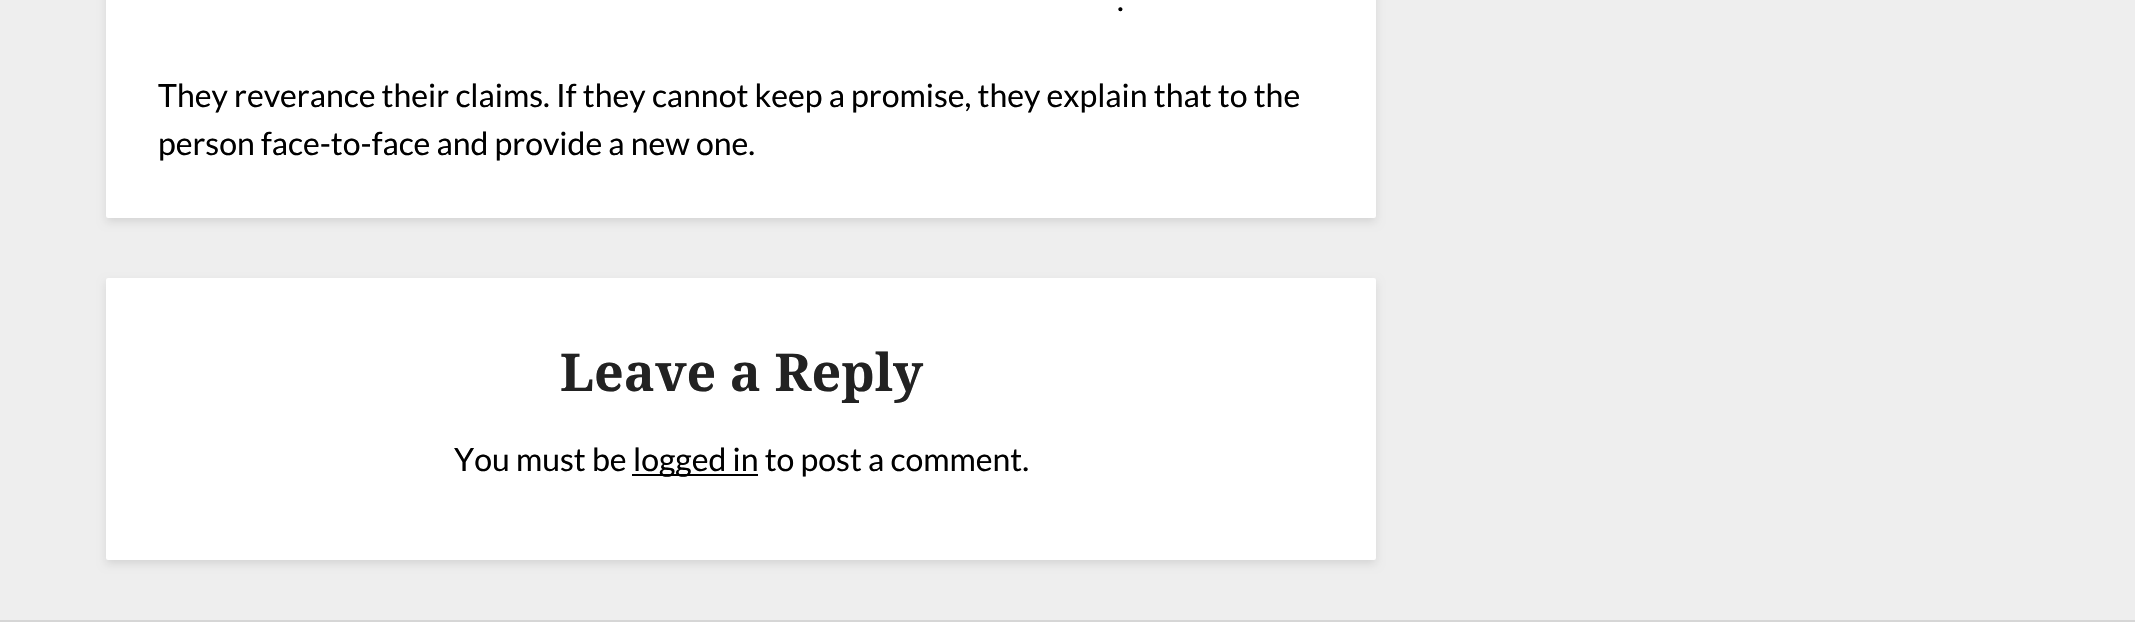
void draw(SkCanvas* canvas) {
	SkPaint paint;
	paint.setAntiAlias(true);
	canvas->clear(0xffeeeeee);
	paint.setColor(0x1a000000);
	paint.setMaskFilter(SkMaskFilter::MakeBlur(kNormal_SkBlurStyle, 4));
	canvas->drawRoundRect(SkRect::MakeXYWH(106, -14, 1270, 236), 2, 2, paint);
	paint.setMaskFilter(nullptr);
	paint.setColor(0xffffffff);
	canvas->drawRoundRect(SkRect::MakeXYWH(106, -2, 1270, 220), 2, 2, paint);
	SkFont f1(fontMgr->matchFamilyStyle("Lato", SkFontStyle::Normal()), 32);
	f1.setSubpixel(true);
	paint.setColor(0xff000000);
	canvas->drawString(".", 1117, 11, f1, paint);
	canvas->drawString("They reverance their claims. If they cannot keep a promise, they explain that to the", 158, 107, f1, paint);
	canvas->drawString("person face-to-face and provide a new one.", 158, 155, f1, paint);
	paint.setColor(0x1a000000);
	paint.setMaskFilter(SkMaskFilter::MakeBlur(kNormal_SkBlurStyle, 4));
	canvas->drawRoundRect(SkRect::MakeXYWH(106, 282, 1270, 282), 2, 2, paint);
	paint.setMaskFilter(nullptr);
	paint.setColor(0xffffffff);
	canvas->drawRoundRect(SkRect::MakeXYWH(106, 278, 1270, 282), 2, 2, paint);
	SkFont f2(fontMgr->matchFamilyStyle("Noto Serif", SkFontStyle::Bold()), 52);
	f2.setSubpixel(true);
	paint.setColor(0xff222222);
	canvas->drawString("Leave a Reply", 560, 391, f2, paint);
	paint.setColor(0xff000000);
	canvas->drawString("You must be", 454, 471, f1, paint);
	canvas->drawRect(SkRect::MakeXYWH(632, 474, 126, 2), paint);
	canvas->drawString("logged in to post a comment.", 633, 471, f1, paint);
	paint.setColor(0xffffffff);
	canvas->drawRect(SkRect::MakeXYWH(0, 622, 2135, 3), paint);
	paint.setColor(0xffd6d6d6);
	canvas->drawRect(SkRect::MakeXYWH(0, 620, 2135, 2), paint);
}
